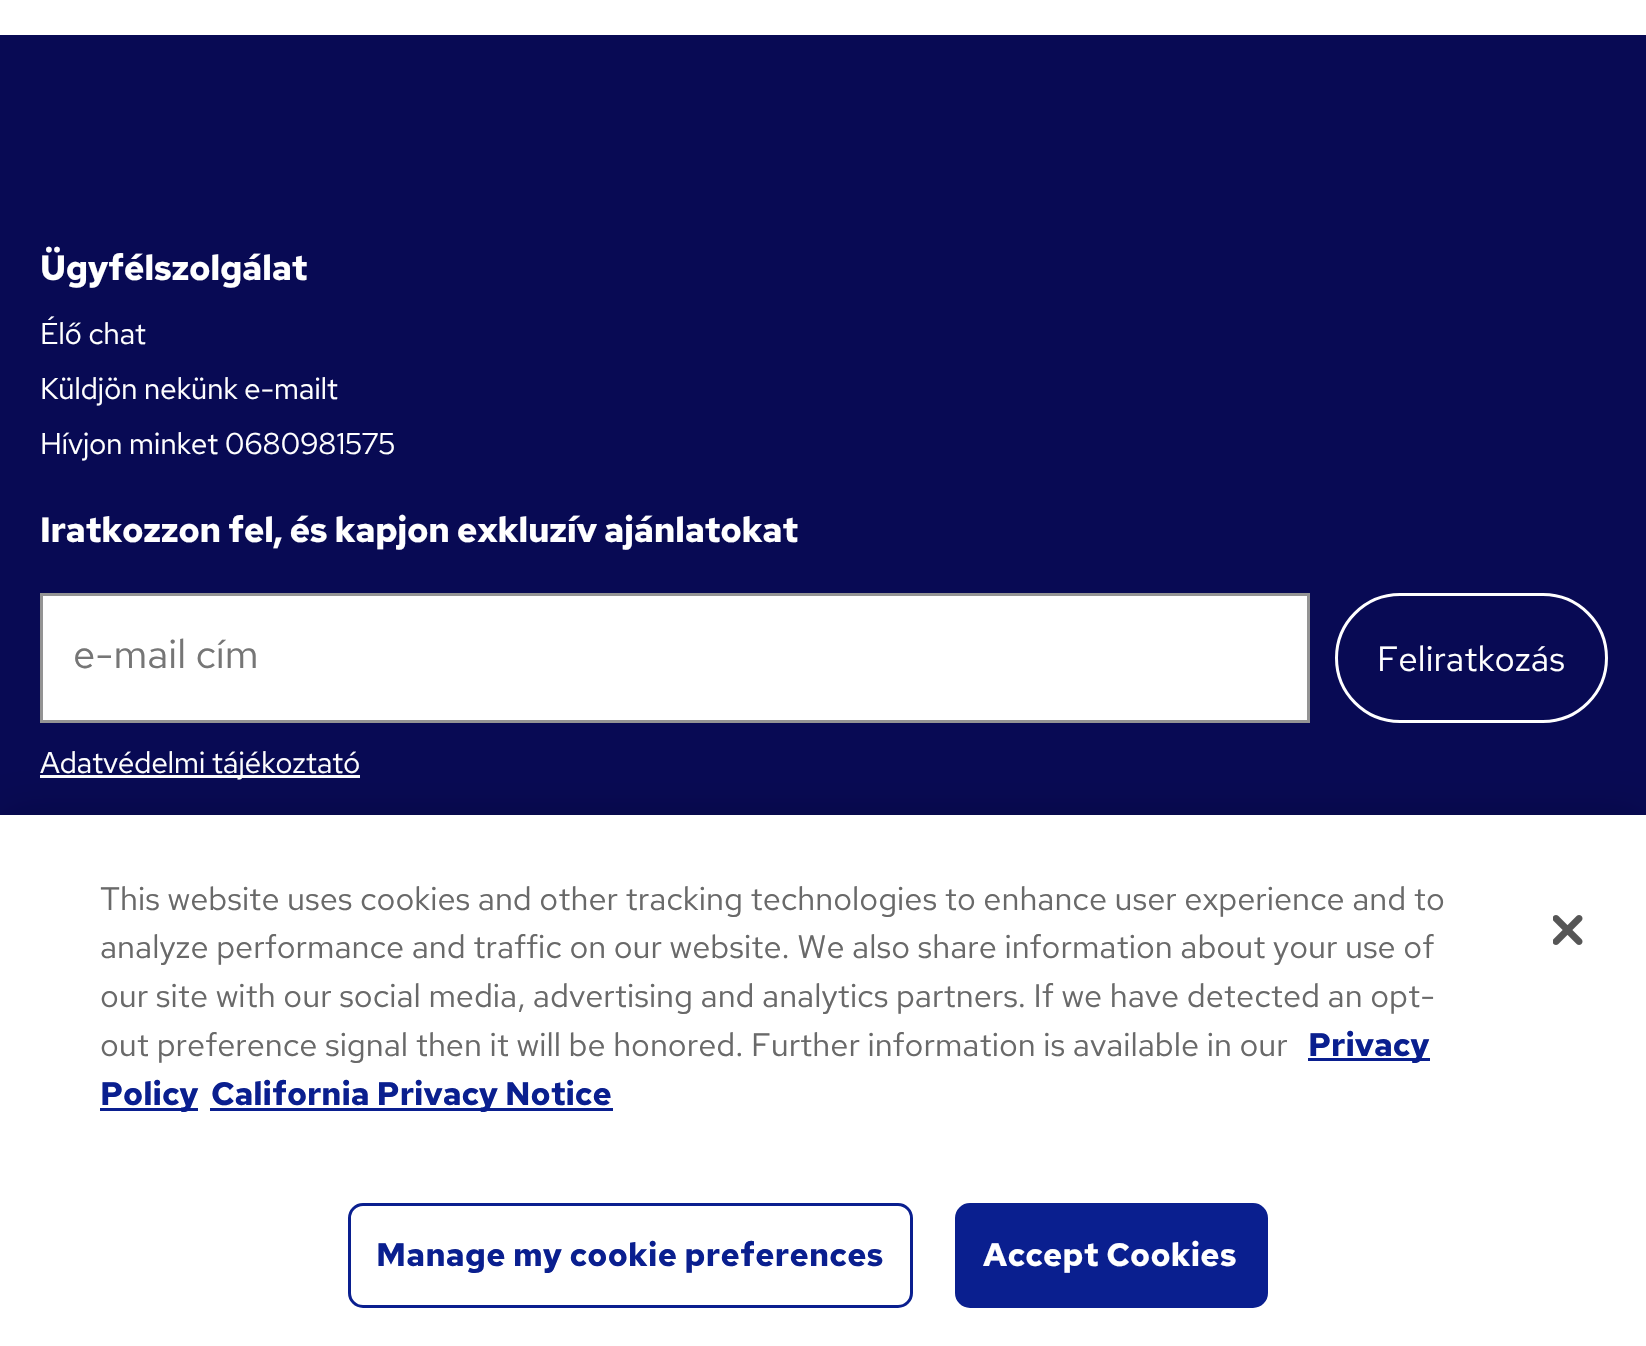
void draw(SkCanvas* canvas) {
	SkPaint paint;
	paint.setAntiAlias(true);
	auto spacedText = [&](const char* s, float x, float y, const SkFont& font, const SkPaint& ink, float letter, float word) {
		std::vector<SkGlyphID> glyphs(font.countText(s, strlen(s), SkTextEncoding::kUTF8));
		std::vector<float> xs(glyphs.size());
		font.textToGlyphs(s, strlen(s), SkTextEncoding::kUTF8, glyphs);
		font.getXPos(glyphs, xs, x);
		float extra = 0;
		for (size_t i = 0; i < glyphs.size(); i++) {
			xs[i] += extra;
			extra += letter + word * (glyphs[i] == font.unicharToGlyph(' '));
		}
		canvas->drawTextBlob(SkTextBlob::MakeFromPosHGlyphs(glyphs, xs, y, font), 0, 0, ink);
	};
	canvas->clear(0xffffffff);
	paint.setColor(0xff080a54);
	canvas->drawRect(SkRect::MakeXYWH(0, 35, 1646, 780), paint);
	SkFont f1(fontMgr->matchFamilyStyle("Red Hat Text", SkFontStyle::Bold()), 35);
	f1.setSubpixel(true);
	paint.setColor(0xffffffff);
	spacedText("Ügyfélszolgálat", 40, 280, f1, paint, -0.35, 0);
	SkFont f2(fontMgr->matchFamilyStyle("Red Hat Text", SkFontStyle::Normal()), 30);
	f2.setSubpixel(true);
	spacedText("Élő chat", 40, 344, f2, paint, -0.35, 0);
	spacedText("Küldjön nekünk e-mailt", 40, 399, f2, paint, -0.35, 0);
	spacedText("Hívjon minket 0680981575", 40, 454, f2, paint, -0.35, 0);
	spacedText("Iratkozzon fel, és kapjon exkluzív ajánlatokat", 40, 542, f1, paint, -0.35, 0);
	canvas->drawRect(SkRect::MakeXYWH(41.5, 594.5, 1267, 127), paint);
	paint.setStroke(true);
	paint.setStrokeWidth(3);
	paint.setColor(0xff949494);
	canvas->drawRect(SkRect::MakeXYWH(41.5, 594.5, 1267, 127), paint);
	SkFont f3(fontMgr->matchFamilyStyle("Red Hat Text", SkFontStyle::Normal()), 40);
	f3.setSubpixel(true);
	paint.setStroke(false);
	paint.setColor(0xff767676);
	canvas->drawString("e-mail cím", 73, 668, f3, paint);
	paint.setStroke(true);
	paint.setColor(0xffffffff);
	canvas->drawRoundRect(SkRect::MakeXYWH(1336.5, 594.5, 270, 127), 63.5, 63.5, paint);
	SkFont f4(fontMgr->matchFamilyStyle("Red Hat Text", SkFontStyle::Normal()), 35);
	f4.setSubpixel(true);
	paint.setStroke(false);
	canvas->drawString("Feliratkozás", 1377, 671, f4, paint);
	canvas->drawRect(SkRect::MakeXYWH(40, 775, 320, 3), paint);
	spacedText("Adatvédelmi tájékoztató", 40, 773, f2, paint, -0.35, 0);
	paint.setColor(0x33000000);
	paint.setMaskFilter(SkMaskFilter::MakeBlur(kNormal_SkBlurStyle, 22.5));
	canvas->drawRect(SkRect::MakeXYWH(0, 815, 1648, 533), paint);
	paint.setMaskFilter(nullptr);
	paint.setColor(0xffffffff);
	canvas->drawRect(SkRect::MakeXYWH(0, 815, 1646, 531), paint);
	SkFont f5(fontMgr->matchFamilyStyle("Red Hat Text", SkFontStyle::Normal()), 32.5);
	f5.setSubpixel(true);
	paint.setColor(0xff696969);
	canvas->drawString("This website uses cookies and other tracking technologies to enhance user experience and to", 100, 910, f5, paint);
	canvas->drawString("analyze performance and traffic on our website. We also share information about your use of", 100, 958, f5, paint);
	canvas->drawString("our site with our social media, advertising and analytics partners. If we have detected an opt-", 100, 1007, f5, paint);
	canvas->drawString("out preference signal then it will be honored. Further information is available in our", 100, 1056, f5, paint);
	paint.setColor(0xff0a1f8f);
	canvas->drawRect(SkRect::MakeXYWH(1308, 1058, 122, 3), paint);
	SkFont f6(fontMgr->matchFamilyStyle("Red Hat Text", SkFontStyle::Bold()), 32.5);
	f6.setSubpixel(true);
	canvas->drawString("Privacy", 1308, 1056, f6, paint);
	canvas->drawRect(SkRect::MakeXYWH(100, 1108, 98, 3), paint);
	canvas->drawString("Policy", 100, 1105, f6, paint);
	canvas->drawRect(SkRect::MakeXYWH(210, 1108, 403, 3), paint);
	canvas->drawString("California Privacy Notice", 211, 1105, f6, paint);
	paint.setStroke(true);
	canvas->drawRoundRect(SkRect::MakeXYWH(349.5, 1204.5, 562, 102), 13.5, 13.5, paint);
	paint.setStroke(false);
	spacedText("Manage my cookie preferences", 376, 1266, f6, paint, 0.3, 0);
	canvas->drawRoundRect(SkRect::MakeXYWH(956.5, 1204.5, 310, 102), 13.5, 13.5, paint);
	paint.setStroke(true);
	canvas->drawRoundRect(SkRect::MakeXYWH(956.5, 1204.5, 310, 102), 13.5, 13.5, paint);
	paint.setStroke(false);
	paint.setColor(0xffffffff);
	spacedText("Accept Cookies", 983, 1266, f6, paint, 0.3, 0);
	canvas->drawImageRect(SkImages::DeferredFromEncodedData(SkData::MakeFromFileName("img1.png")), SkRect::MakeXYWH(1553, 915, 30, 30), SkSamplingOptions());
}
